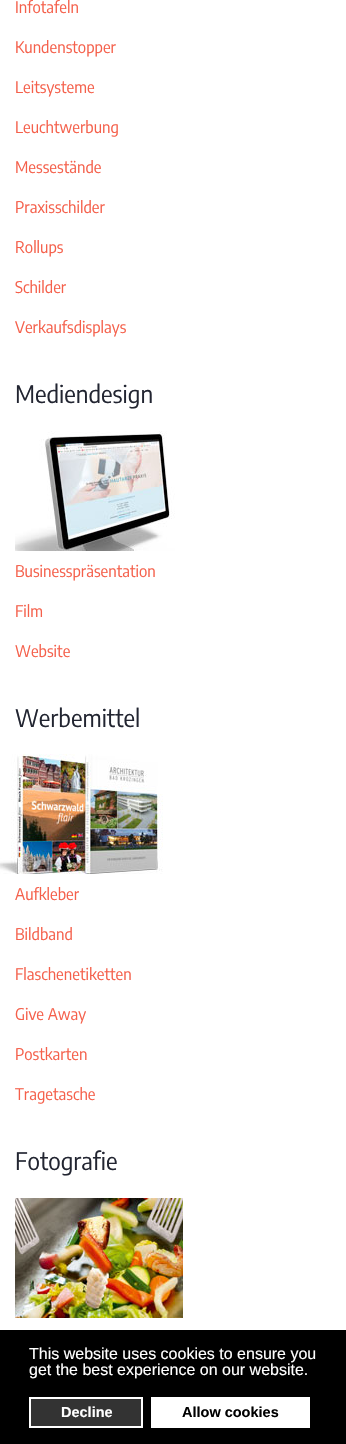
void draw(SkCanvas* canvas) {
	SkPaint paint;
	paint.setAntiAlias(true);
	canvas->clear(0xffffffff);
	SkFont f1(fontMgr->matchFamilyStyle("Encode Sans Semi Condensed", SkFontStyle::Normal()), 16);
	f1.setSubpixel(true);
	paint.setColor(0xfff5604b);
	canvas->drawString("Infotafeln", 15, 13, f1, paint);
	canvas->drawString("Kundenstopper", 15, 53, f1, paint);
	canvas->drawString("Leitsysteme", 15, 93, f1, paint);
	canvas->drawString("Leuchtwerbung", 15, 133, f1, paint);
	canvas->drawString("Messestände", 15, 173, f1, paint);
	canvas->drawString("Praxisschilder", 15, 213, f1, paint);
	canvas->drawString("Rollups", 15, 253, f1, paint);
	canvas->drawString("Schilder", 15, 293, f1, paint);
	canvas->drawString("Verkaufsdisplays", 15, 333, f1, paint);
	SkFont f2(fontMgr->matchFamilyStyle("Encode Sans Semi Condensed", SkFontStyle::Normal()), 24);
	f2.setSubpixel(true);
	paint.setColor(0xff222531);
	canvas->drawString("Mediendesign", 15, 403, f2, paint);
	canvas->drawImageRect(SkImages::DeferredFromEncodedData(SkData::MakeFromFileName("img1.png")), SkRect::MakeXYWH(15, 431, 160, 120), SkSamplingOptions());
	paint.setColor(0xfff5604b);
	canvas->drawString("Businesspräsentation", 15, 577, f1, paint);
	canvas->drawString("Film", 15, 617, f1, paint);
	canvas->drawString("Website", 15, 657, f1, paint);
	paint.setColor(0xff222531);
	canvas->drawString("Werbemittel", 15, 727, f2, paint);
	canvas->drawImageRect(SkImages::DeferredFromEncodedData(SkData::MakeFromFileName("img2.png")), SkRect::MakeXYWH(0, 754, 163, 120), SkSamplingOptions());
	paint.setColor(0xfff5604b);
	canvas->drawString("Aufkleber", 15, 900, f1, paint);
	canvas->drawString("Bildband", 15, 940, f1, paint);
	canvas->drawString("Flaschenetiketten", 15, 980, f1, paint);
	canvas->drawString("Give Away", 15, 1020, f1, paint);
	canvas->drawString("Postkarten", 15, 1060, f1, paint);
	canvas->drawString("Tragetasche", 15, 1100, f1, paint);
	paint.setColor(0xff222531);
	canvas->drawString("Fotografie", 15, 1170, f2, paint);
	canvas->drawImageRect(SkImages::DeferredFromEncodedData(SkData::MakeFromFileName("img3.png")), SkRect::MakeXYWH(15, 1198, 168, 120), SkSamplingOptions());
	paint.setColor(0xff000000);
	canvas->drawRect(SkRect::MakeXYWH(0, 1330, 346, 114), paint);
	SkFont f3(fontMgr->matchFamilyStyle("Liberation Sans", SkFontStyle::Normal()), 16);
	f3.setSubpixel(true);
	paint.setColor(0xffffffff);
	canvas->drawString("This website uses cookies to ensure you", 29, 1359, f3, paint);
	canvas->drawString("get the best experience on our website.", 29, 1375, f3, paint);
	paint.setColor(0xff333333);
	canvas->drawRect(SkRect::MakeXYWH(30, 1398, 112, 29), paint);
	paint.setStroke(true);
	paint.setStrokeWidth(2);
	paint.setColor(0xffffffff);
	canvas->drawRect(SkRect::MakeXYWH(30, 1398, 112, 29), paint);
	SkFont f4(fontMgr->matchFamilyStyle("Liberation Sans", SkFontStyle::Bold()), 14.5);
	f4.setSubpixel(true);
	paint.setStroke(false);
	canvas->drawString("Decline", 61, 1417, f4, paint);
	canvas->drawRect(SkRect::MakeXYWH(151, 1397, 159, 31), paint);
	paint.setColor(0xff000000);
	canvas->drawString("Allow cookies", 182, 1417, f4, paint);
}
